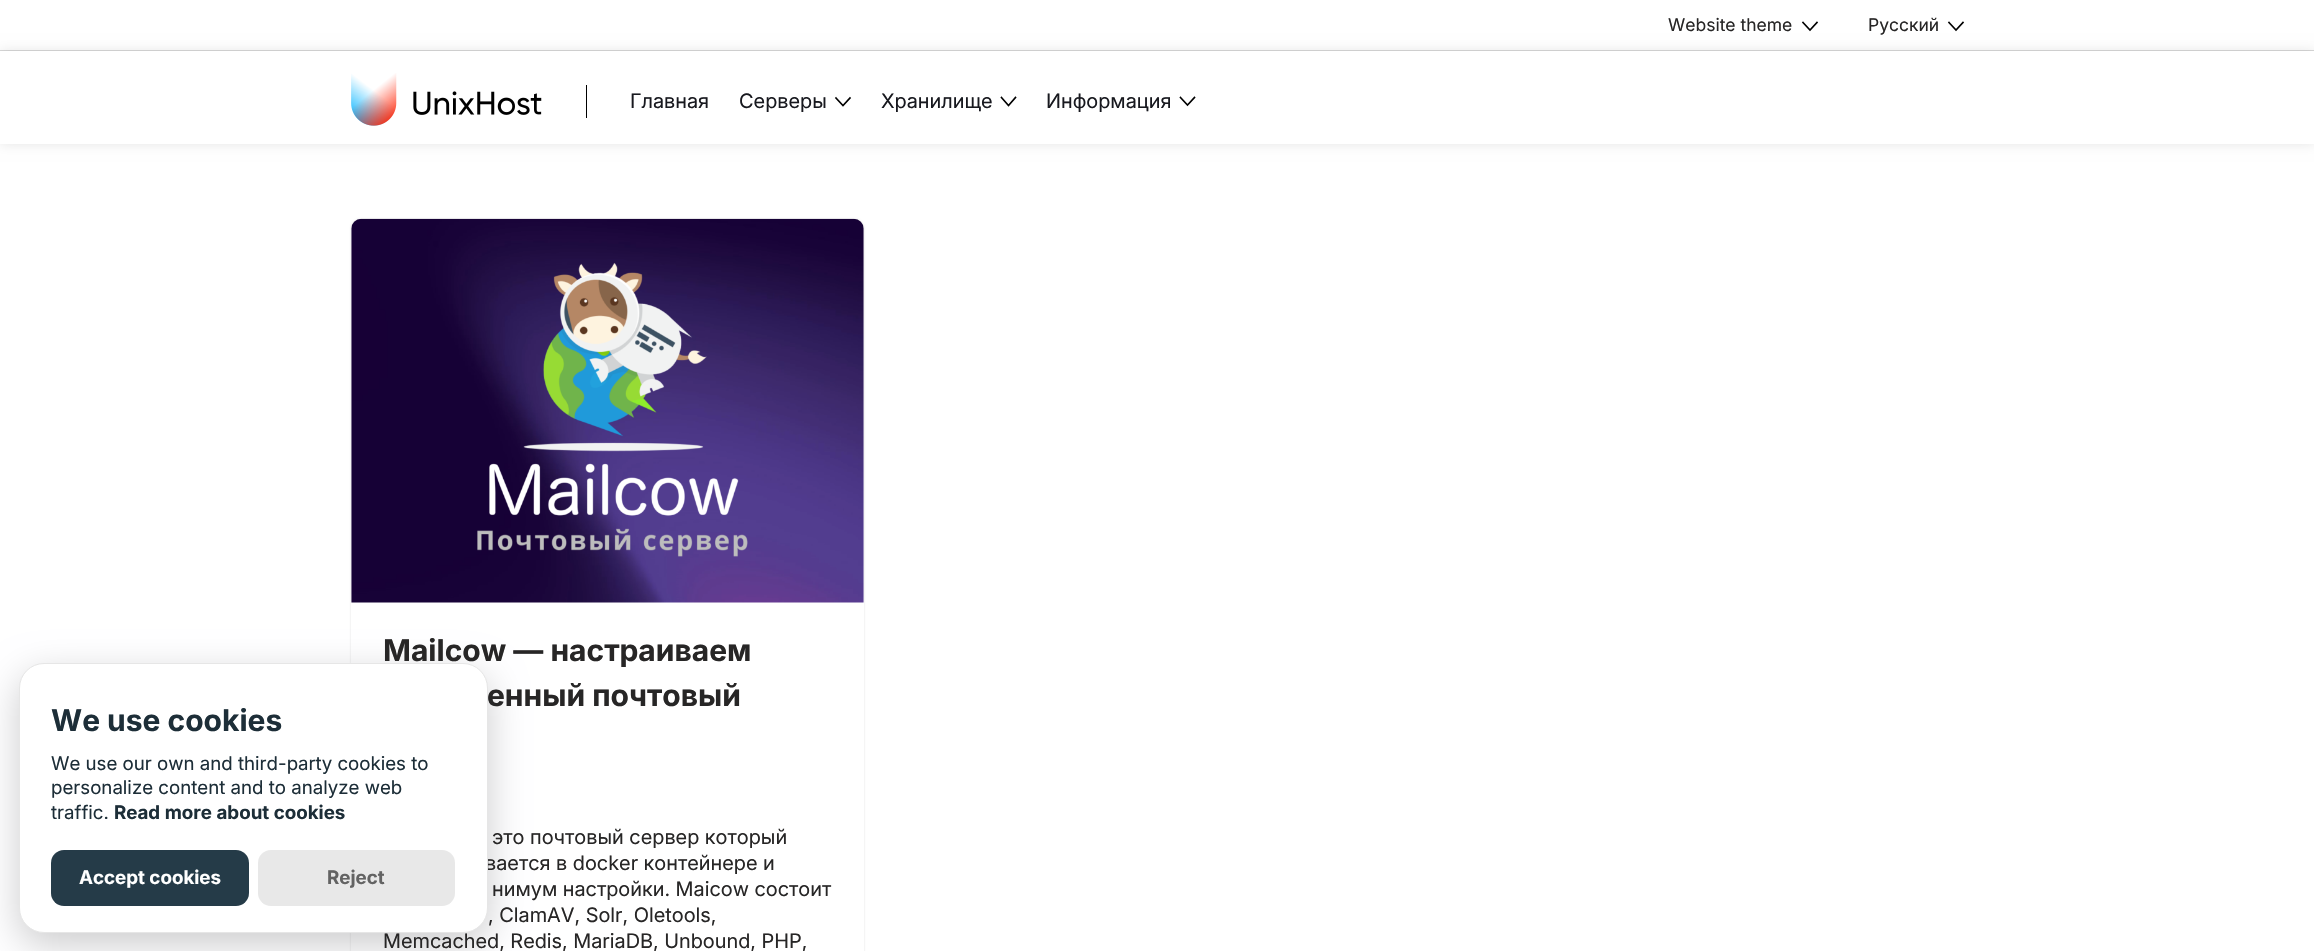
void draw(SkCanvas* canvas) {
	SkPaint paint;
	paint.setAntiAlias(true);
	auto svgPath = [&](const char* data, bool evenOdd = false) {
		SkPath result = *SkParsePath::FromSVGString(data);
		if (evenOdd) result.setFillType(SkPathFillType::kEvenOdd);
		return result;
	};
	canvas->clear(0xffffffff);
	paint.setColor(0x26000000);
	paint.setMaskFilter(SkMaskFilter::MakeBlur(kNormal_SkBlurStyle, 1));
	canvas->drawRoundRect(SkRect::MakeXYWH(351, 219, 513, 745), 10, 10, paint);
	paint.setMaskFilter(nullptr);
	paint.setColor(0xffffffff);
	canvas->drawRoundRect(SkRect::MakeXYWH(351, 219, 513, 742), 10, 10, paint);
	paint.setColor(0x33020203);
	paint.setMaskFilter(SkMaskFilter::MakeBlur(kNormal_SkBlurStyle, 19));
	canvas->drawRoundRect(SkRect::MakeXYWH(19, 675, 469, 270), 25, 25, paint);
	paint.setMaskFilter(nullptr);
	SkFont f1(fontMgr->matchFamilyStyle("Inter", SkFontStyle::Bold()), 30);
	f1.setSubpixel(true);
	paint.setColor(0xff272626);
	canvas->drawString("Mailcow — настраиваем", 383, 661, f1, paint);
	SkFont f2(fontMgr->matchFamilyStyle("Inter", SkFontStyle::Normal()), 20);
	f2.setSubpixel(true);
	canvas->drawString("вается в docker контейнере и", 485, 870, f2, paint);
	paint.setColor(0xffffffff);
	canvas->drawRoundRect(SkRect::MakeXYWH(19.5, 663.5, 468, 269), 24.5, 24.5, paint);
	paint.setStroke(true);
	paint.setStrokeWidth(1);
	paint.setColor(0xffe6e6e6);
	canvas->drawRoundRect(SkRect::MakeXYWH(19.5, 663.5, 468, 269), 24.5, 24.5, paint);
	paint.setStroke(false);
	paint.setColor(0xff1d2e38);
	canvas->drawString("We use cookies", 51, 731, f1, paint);
	SkFont f3(fontMgr->matchFamilyStyle("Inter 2", SkFontStyle::Normal()), 18.75);
	f3.setSubpixel(true);
	canvas->drawString("We use our own and third-party cookies to", 51, 770, f3, paint);
	canvas->drawString("personalize content and to analyze web", 51, 794, f3, paint);
	canvas->drawString("traffic.", 51, 819, f3, paint);
	SkFont f4(fontMgr->matchFamilyStyle("Inter", SkFontStyle::Bold()), 18.75);
	f4.setSubpixel(true);
	canvas->drawString("Read more about cookies", 114, 819, f4, paint);
	paint.setColor(0xff253b48);
	canvas->drawRoundRect(SkRect::MakeXYWH(51, 850, 198, 56), 13, 13, paint);
	paint.setColor(0xffffffff);
	canvas->drawString("Accept cookies", 79, 884, f4, paint);
	paint.setColor(0xffe8e8e8);
	canvas->drawRoundRect(SkRect::MakeXYWH(258, 850, 197, 56), 13, 13, paint);
	paint.setColor(0xff636363);
	canvas->drawString("Reject", 327, 884, f4, paint);
	paint.setColor(0x1a000000);
	paint.setMaskFilter(SkMaskFilter::MakeBlur(kNormal_SkBlurStyle, 6));
	canvas->drawRect(SkRect::MakeXYWH(0, 51, 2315, 93), paint);
	paint.setMaskFilter(nullptr);
	paint.setColor(0x26000000);
	canvas->drawRect(SkRect::MakeXYWH(0, 50, 2314, 1), paint);
	SkFont f5(fontMgr->matchFamilyStyle("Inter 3", SkFontStyle::Normal()), 17.5);
	f5.setSubpixel(true);
	paint.setColor(0xff272626);
	canvas->drawString("Website theme", 1668, 31, f5, paint);
	paint.setStroke(true);
	paint.setStrokeWidth(1.6);
	paint.setStrokeCap(SkPaint::kSquare_Cap);
	paint.setColor(0xff000000);
	canvas->drawPath(svgPath("M1803 22.5L1810 30L1817 22.5"), paint);
	paint.setStroke(false);
	paint.setColor(0xff272626);
	canvas->drawString("Русский", 1868, 31, f5, paint);
	paint.setStroke(true);
	paint.setColor(0xff000000);
	canvas->drawPath(svgPath("M1949 22.5L1956 30L1963 22.5"), paint);
	paint.setStroke(false);
	paint.setColor(0xffffffff);
	canvas->drawRect(SkRect::MakeXYWH(0, 51, 2314, 93), paint);
	canvas->drawImageRect(SkImages::DeferredFromEncodedData(SkData::MakeFromFileName("img1.png")), SkRect::MakeXYWH(351, 73, 191, 53), SkSamplingOptions());
	paint.setColor(0xff000000);
	canvas->drawRect(SkRect::MakeXYWH(586, 85, 1, 33), paint);
	paint.setColor(0xff18191f);
	canvas->drawString("Главная", 630, 108, f2, paint);
	canvas->drawString("Серверы", 739, 108, f2, paint);
	paint.setStroke(true);
	paint.setColor(0xff000000);
	canvas->drawPath(svgPath("M836 98L843 105.5L850 98"), paint);
	paint.setStroke(false);
	paint.setColor(0xff18191f);
	canvas->drawString("Хранилище", 881, 108, f2, paint);
	paint.setStroke(true);
	paint.setColor(0xff000000);
	canvas->drawPath(svgPath("M1001.5 97.5L1008.5 105.5L1015.5 97.5"), paint);
	paint.setStroke(false);
	paint.setColor(0xff18191f);
	canvas->drawString("Информация", 1046, 108, f2, paint);
	paint.setStroke(true);
	paint.setColor(0xff000000);
	canvas->drawPath(svgPath("M1180.5 97.5L1187.5 105L1194.5 97.5"), paint);
	canvas->drawImageRect(SkImages::DeferredFromEncodedData(SkData::MakeFromFileName("img2.png")), SkRect::MakeXYWH(351, 218, 513, 385), SkSamplingOptions());
	paint.setStroke(false);
	paint.setColor(0xff272626);
	canvas->drawString("енный почтовый", 487, 706, f1, paint);
	canvas->drawString("это почтовый сервер который", 492, 844, f2, paint);
	canvas->drawString("нимум настройки. Maicow состоит", 492, 896, f2, paint);
	canvas->drawString(", ClamAV, Solr, Oletools,", 488, 922, f2, paint);
	canvas->drawString("Memcached, Redis, MariaDB, Unbound, PHP,", 383, 948, f2, paint);
}
